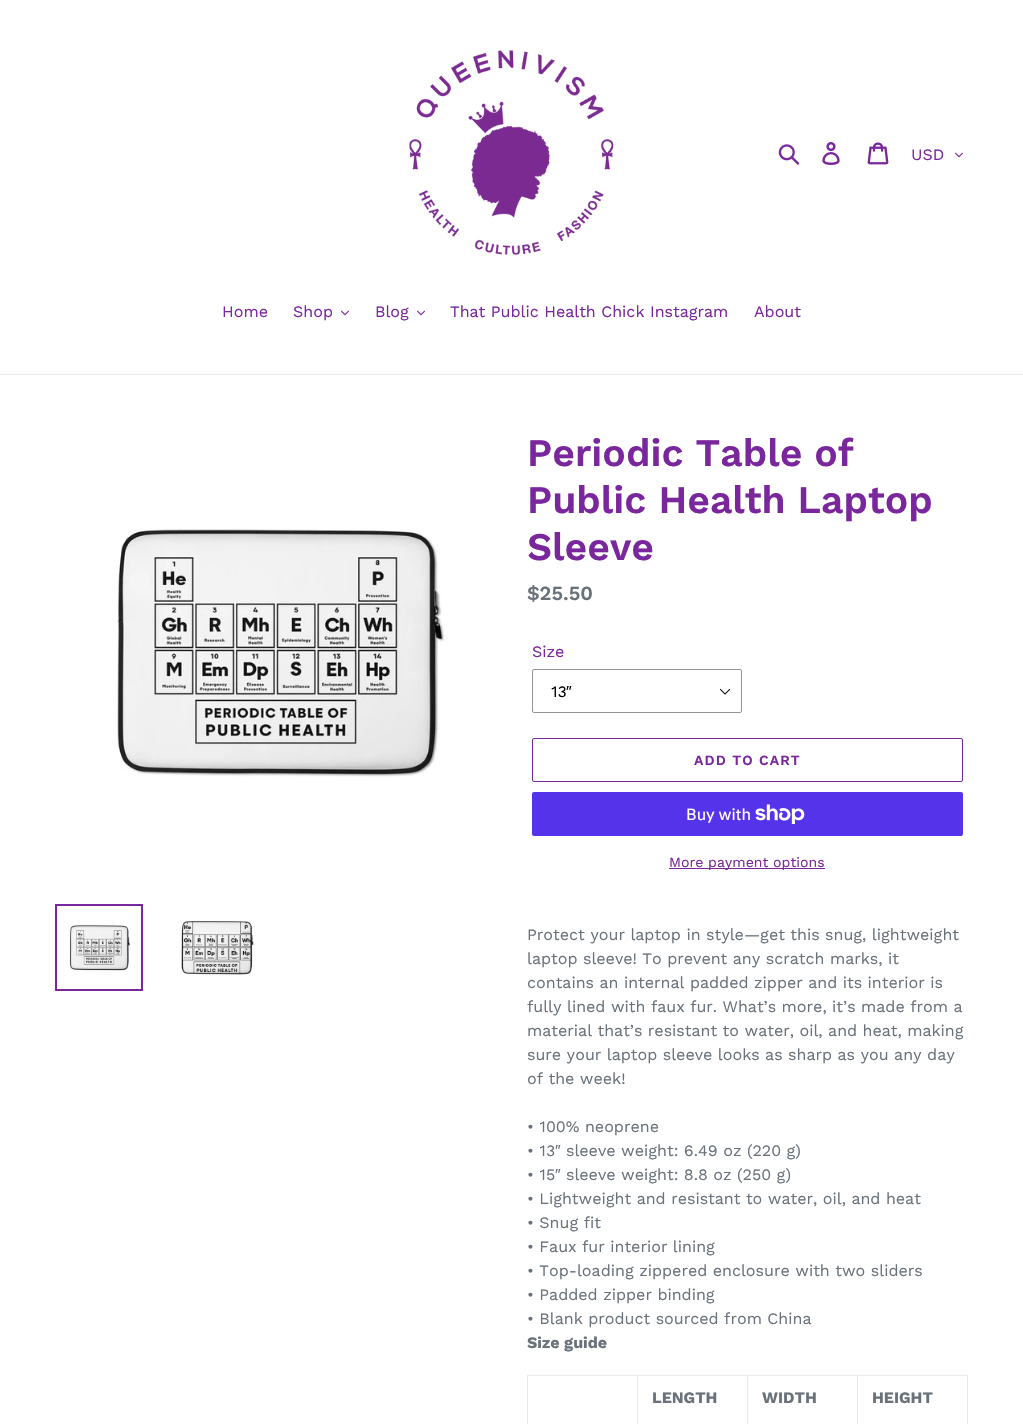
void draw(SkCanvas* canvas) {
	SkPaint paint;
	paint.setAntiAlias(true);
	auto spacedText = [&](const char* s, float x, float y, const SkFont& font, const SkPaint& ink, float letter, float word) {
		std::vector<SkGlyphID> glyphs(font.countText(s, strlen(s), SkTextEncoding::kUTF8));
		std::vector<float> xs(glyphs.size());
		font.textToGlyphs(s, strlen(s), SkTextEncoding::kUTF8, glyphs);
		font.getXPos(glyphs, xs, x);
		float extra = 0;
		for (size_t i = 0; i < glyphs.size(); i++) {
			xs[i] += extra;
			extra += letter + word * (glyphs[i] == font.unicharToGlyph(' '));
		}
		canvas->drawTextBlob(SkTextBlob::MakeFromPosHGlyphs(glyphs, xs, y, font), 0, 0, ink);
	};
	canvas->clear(0xffffffff);
	canvas->drawImageRect(SkImages::DeferredFromEncodedData(SkData::MakeFromFileName("img1.png")), SkRect::MakeXYWH(409, 50, 205, 205), SkSamplingOptions());
	canvas->drawImageRect(SkImages::DeferredFromEncodedData(SkData::MakeFromFileName("img2.png")), SkRect::MakeXYWH(778, 144, 22, 21), SkSamplingOptions());
	canvas->drawImageRect(SkImages::DeferredFromEncodedData(SkData::MakeFromFileName("img3.png")), SkRect::MakeXYWH(822, 142, 18, 23), SkSamplingOptions());
	canvas->drawImageRect(SkImages::DeferredFromEncodedData(SkData::MakeFromFileName("img4.png")), SkRect::MakeXYWH(867, 142, 22, 23), SkSamplingOptions());
	SkFont f1(fontMgr->matchFamilyStyle("Work Sans", SkFontStyle::Normal()), 16);
	f1.setSubpixel(true);
	paint.setColor(0xff7a269c);
	canvas->drawString("USD", 911, 160, f1, paint);
	canvas->drawImageRect(SkImages::DeferredFromEncodedData(SkData::MakeFromFileName("img5.png")), SkRect::MakeXYWH(955, 152, 8, 6), SkSamplingOptions());
	paint.setColor(0xffe8e9eb);
	canvas->drawRect(SkRect::MakeXYWH(0, 374, 1023, 1), paint);
	paint.setColor(0xff7a269c);
	canvas->drawString("Home", 222, 317, f1, paint);
	canvas->drawString("Shop", 293, 317, f1, paint);
	canvas->drawImageRect(SkImages::DeferredFromEncodedData(SkData::MakeFromFileName("img5.png")), SkRect::MakeXYWH(341, 310, 8, 6), SkSamplingOptions());
	canvas->drawString("Blog", 375, 317, f1, paint);
	canvas->drawImageRect(SkImages::DeferredFromEncodedData(SkData::MakeFromFileName("img5.png")), SkRect::MakeXYWH(417, 310, 8, 6), SkSamplingOptions());
	canvas->drawString("That Public Health Chick Instagram", 450, 317, f1, paint);
	canvas->drawString("About", 754, 317, f1, paint);
	canvas->drawImageRect(SkImages::DeferredFromEncodedData(SkData::MakeFromFileName("img6.png")), SkRect::MakeXYWH(117, 528, 328, 249), SkSamplingOptions());
	paint.setStroke(true);
	paint.setStrokeWidth(2);
	canvas->drawRect(SkRect::MakeXYWH(56, 905, 86, 85), paint);
	canvas->drawImageRect(SkImages::DeferredFromEncodedData(SkData::MakeFromFileName("img7.png")), SkRect::MakeXYWH(69, 925, 62, 46), SkSamplingOptions());
	canvas->drawImageRect(SkImages::DeferredFromEncodedData(SkData::MakeFromFileName("img8.png")), SkRect::MakeXYWH(181, 921, 73, 54), SkSamplingOptions());
	SkFont f2(fontMgr->matchFamilyStyle("Work Sans", SkFontStyle(600, SkFontStyle::kNormal_Width, SkFontStyle::kUpright_Slant)), 39);
	f2.setSubpixel(true);
	paint.setStroke(false);
	canvas->drawString("Periodic Table of", 527, 466, f2, paint);
	canvas->drawString("Public Health Laptop", 527, 513, f2, paint);
	canvas->drawString("Sleeve", 527, 560, f2, paint);
	SkFont f3(fontMgr->matchFamilyStyle("Work Sans", SkFontStyle(600, SkFontStyle::kNormal_Width, SkFontStyle::kUpright_Slant)), 20);
	f3.setSubpixel(true);
	paint.setColor(0xff69727b);
	canvas->drawString("$25.50", 527, 600, f3, paint);
	paint.setColor(0xff7a269c);
	canvas->drawString("Size", 532, 657, f1, paint);
	canvas->drawImageRect(SkImages::DeferredFromEncodedData(SkData::MakeFromFileName("img9.png")), SkRect::MakeXYWH(719, 688, 12, 7), SkSamplingOptions());
	paint.setStroke(true);
	paint.setStrokeWidth(1);
	paint.setColor(0xff949494);
	canvas->drawRoundRect(SkRect::MakeXYWH(532.5, 669.5, 209, 43), 1.5, 1.5, paint);
	paint.setStroke(false);
	paint.setColor(0xff000000);
	canvas->drawString("13", 551, 697, f1, paint);
	SkFont f4(fontMgr->matchFamilyStyle("Liberation Sans", SkFontStyle::Normal()), 16);
	f4.setSubpixel(true);
	canvas->drawString("″", 566, 697, f4, paint);
	paint.setStroke(true);
	paint.setColor(0xff7a269c);
	canvas->drawRoundRect(SkRect::MakeXYWH(532.5, 738.5, 430, 43), 1.5, 1.5, paint);
	SkFont f5(fontMgr->matchFamilyStyle("Work Sans", SkFontStyle(600, SkFontStyle::kNormal_Width, SkFontStyle::kUpright_Slant)), 14);
	f5.setSubpixel(true);
	paint.setStroke(false);
	spacedText("ADD TO CART", 694, 765, f5, paint, 1.1, 0);
	paint.setColor(0xff5433eb);
	canvas->drawRoundRect(SkRect::MakeXYWH(532, 792, 431, 44), 2, 2, paint);
	SkFont f6(fontMgr->matchFamilyStyle("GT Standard", SkFontStyle::Normal()), 16);
	f6.setSubpixel(true);
	paint.setColor(0xffffffff);
	canvas->drawString("Buy with", 686, 820, f6, paint);
	canvas->drawImageRect(SkImages::DeferredFromEncodedData(SkData::MakeFromFileName("img10.png")), SkRect::MakeXYWH(755, 804, 50, 20), SkSamplingOptions());
	paint.setColor(0xff7a269c);
	canvas->drawRect(SkRect::MakeXYWH(669, 868, 156, 1), paint);
	SkFont f7(fontMgr->matchFamilyStyle("Work Sans", SkFontStyle::Normal()), 14);
	f7.setSubpixel(true);
	canvas->drawString("More payment options", 669, 867, f7, paint);
	paint.setColor(0xff69727b);
	canvas->drawString("Protect your laptop in style—get this snug, lightweight", 527, 940, f1, paint);
	canvas->drawString("laptop sleeve! To prevent any scratch marks, it", 527, 964, f1, paint);
	canvas->drawString("contains an internal padded zipper and its interior is", 527, 988, f1, paint);
	canvas->drawString("fully lined with faux fur. What’s more, it’s made from a", 527, 1012, f1, paint);
	canvas->drawString("material that’s resistant to water, oil, and heat, making", 527, 1036, f1, paint);
	canvas->drawString("sure your laptop sleeve looks as sharp as you any day", 527, 1060, f1, paint);
	canvas->drawString("of the week!", 527, 1084, f1, paint);
	canvas->drawString("• 100% neoprene", 527, 1132, f1, paint);
	canvas->drawString("• 13", 527, 1156, f1, paint);
	canvas->drawString("″", 555, 1156, f4, paint);
	canvas->drawString("sleeve weight: 6.49 oz (220 g)", 566, 1156, f1, paint);
	canvas->drawString("• 15", 527, 1180, f1, paint);
	canvas->drawString("″", 555, 1180, f4, paint);
	canvas->drawString("sleeve weight: 8.8 oz (250 g)", 566, 1180, f1, paint);
	canvas->drawString("• Lightweight and resistant to water, oil, and heat", 527, 1204, f1, paint);
	canvas->drawString("• Snug fit", 527, 1228, f1, paint);
	canvas->drawString("• Faux fur interior lining", 527, 1252, f1, paint);
	canvas->drawString("• Top-loading zippered enclosure with two sliders", 527, 1276, f1, paint);
	canvas->drawString("• Padded zipper binding", 527, 1300, f1, paint);
	canvas->drawString("• Blank product sourced from China", 527, 1324, f1, paint);
	SkFont f8(fontMgr->matchFamilyStyle("Work Sans", SkFontStyle::Bold()), 16);
	f8.setSubpixel(true);
	canvas->drawString("Size guide", 527, 1348, f8, paint);
	paint.setColor(0xffe8e9eb);
	canvas->drawRect(SkRect::MakeXYWH(857, 1375, 111, 1), paint);
	canvas->drawRect(SkRect::MakeXYWH(857, 1375, 1, 49), paint);
	canvas->drawRect(SkRect::MakeXYWH(747, 1375, 111, 1), paint);
	canvas->drawRect(SkRect::MakeXYWH(747, 1375, 1, 49), paint);
	canvas->drawRect(SkRect::MakeXYWH(637, 1375, 111, 1), paint);
	canvas->drawRect(SkRect::MakeXYWH(637, 1375, 1, 49), paint);
	canvas->drawRect(SkRect::MakeXYWH(527, 1375, 111, 1), paint);
	canvas->drawRect(SkRect::MakeXYWH(527, 1375, 1, 49), paint);
	paint.setColor(0xff69727b);
	canvas->drawString("LENGTH", 652, 1403, f8, paint);
	canvas->drawString("WIDTH", 762, 1403, f8, paint);
	paint.setColor(0xffe8e9eb);
	canvas->drawRect(SkRect::MakeXYWH(967, 1375, 1, 49), paint);
	paint.setColor(0xff69727b);
	canvas->drawString("HEIGHT", 872, 1403, f8, paint);
}
